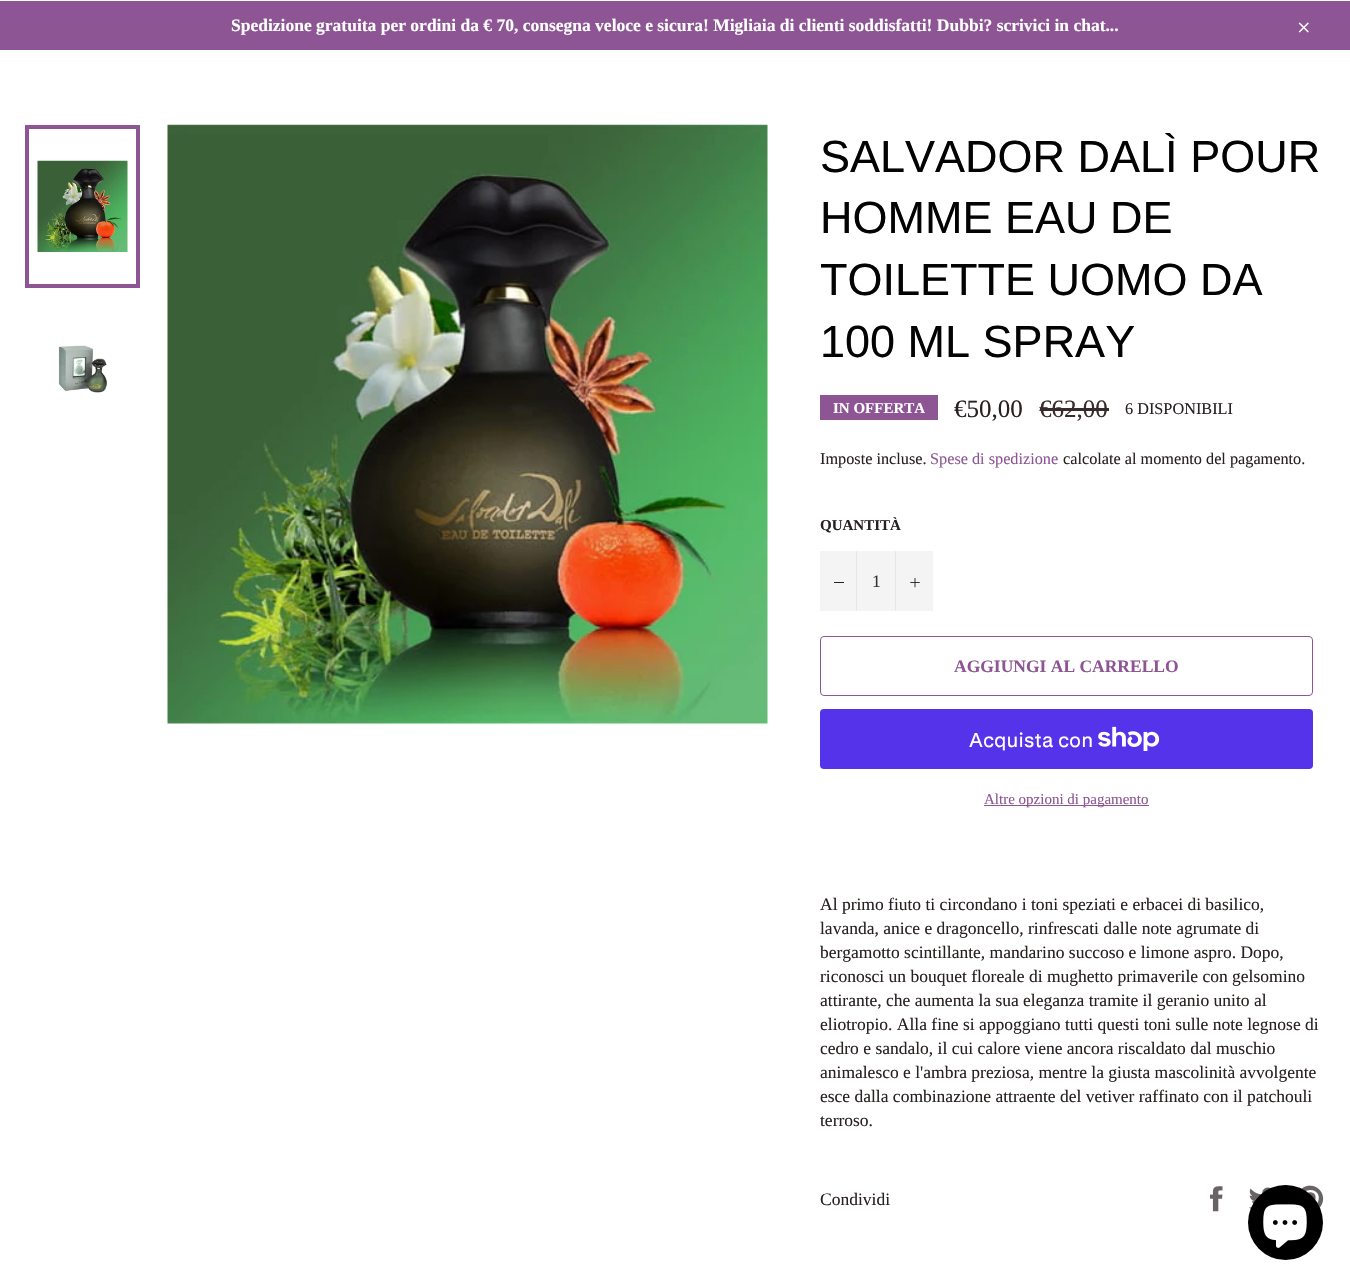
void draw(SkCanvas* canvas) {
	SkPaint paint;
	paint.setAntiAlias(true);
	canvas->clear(0xffffffff);
	paint.setColor(0xff8d5594);
	canvas->drawRect(SkRect::MakeXYWH(0, 1, 1350, 49), paint);
	SkFont f1(fontMgr->matchFamilyStyle("Liberation Serif", SkFontStyle::Bold()), 17.5);
	f1.setSubpixel(true);
	paint.setColor(0xffffffff);
	canvas->drawString("Spedizione gratuita per ordini da € 70, consegna veloce e sicura! Migliaia di clienti soddisfatti! Dubbi? scrivici in chat...", 231, 31, f1, paint);
	canvas->drawImageRect(SkImages::DeferredFromEncodedData(SkData::MakeFromFileName("img1.png")), SkRect::MakeXYWH(1298, 22, 11, 11), SkSamplingOptions());
	canvas->drawImageRect(SkImages::DeferredFromEncodedData(SkData::MakeFromFileName("img2.png")), SkRect::MakeXYWH(37, 160, 91, 92), SkSamplingOptions());
	paint.setStroke(true);
	paint.setStrokeWidth(4);
	paint.setColor(0xff8d5594);
	canvas->drawRect(SkRect::MakeXYWH(27, 127, 111, 159), paint);
	canvas->drawImageRect(SkImages::DeferredFromEncodedData(SkData::MakeFromFileName("img3.png")), SkRect::MakeXYWH(58, 344, 50, 50), SkSamplingOptions());
	canvas->drawImageRect(SkImages::DeferredFromEncodedData(SkData::MakeFromFileName("img4.png")), SkRect::MakeXYWH(167, 124, 601, 600), SkSamplingOptions());
	SkFont f2(fontMgr->matchFamilyStyle("Liberation Sans", SkFontStyle::Normal()), 45);
	f2.setSubpixel(true);
	paint.setStroke(false);
	paint.setColor(0xff030303);
	canvas->drawString("SALVADOR DALÌ POUR", 820, 172, f2, paint);
	canvas->drawString("HOMME EAU DE", 820, 233, f2, paint);
	canvas->drawString("TOILETTE UOMO DA", 820, 295, f2, paint);
	canvas->drawString("100 ML SPRAY", 820, 357, f2, paint);
	paint.setColor(0xff8d5594);
	canvas->drawRect(SkRect::MakeXYWH(820, 395, 118, 25), paint);
	SkFont f3(fontMgr->matchFamilyStyle("Liberation Serif", SkFontStyle::Bold()), 15);
	f3.setSubpixel(true);
	paint.setColor(0xffffffff);
	canvas->drawString("IN OFFERTA", 833, 413, f3, paint);
	SkFont f4(fontMgr->matchFamilyStyle("Liberation Serif", SkFontStyle::Normal()), 25);
	f4.setSubpixel(true);
	paint.setColor(0xff292020);
	canvas->drawString("€50,00", 954, 417, f4, paint);
	paint.setColor(0xff372b2b);
	canvas->drawString("€62,00", 1039, 417, f4, paint);
	canvas->drawRect(SkRect::MakeXYWH(1040, 408, 69, 3), paint);
	SkFont f5(fontMgr->matchFamilyStyle("Liberation Serif", SkFontStyle::Normal()), 16.25);
	f5.setSubpixel(true);
	paint.setColor(0xff292020);
	canvas->drawString("6 DISPONIBILI", 1125, 414, f5, paint);
	canvas->drawString("Imposte incluse.", 820, 464, f5, paint);
	paint.setColor(0xff8d5594);
	canvas->drawString("Spese di spedizione", 930, 464, f5, paint);
	paint.setColor(0xff292020);
	canvas->drawString("calcolate al momento del pagamento.", 1063, 464, f5, paint);
	canvas->drawString("QUANTITÀ", 820, 530, f3, paint);
	paint.setColor(0xfff4f4f4);
	canvas->drawRect(SkRect::MakeXYWH(820, 551, 113, 60), paint);
	paint.setColor(0xffe7e7e7);
	canvas->drawRect(SkRect::MakeXYWH(856, 551, 1, 60), paint);
	paint.setColor(0xff292020);
	canvas->drawRect(SkRect::MakeXYWH(834, 582, 10, 1), paint);
	SkFont f6(fontMgr->matchFamilyStyle("Liberation Serif", SkFontStyle::Normal()), 17.5);
	f6.setSubpixel(true);
	paint.setColor(0xff333333);
	canvas->drawString("1", 872, 587, f6, paint);
	paint.setColor(0xffe7e7e7);
	canvas->drawRect(SkRect::MakeXYWH(895, 551, 1, 60), paint);
	canvas->drawImageRect(SkImages::DeferredFromEncodedData(SkData::MakeFromFileName("img5.png")), SkRect::MakeXYWH(910, 578, 10, 10), SkSamplingOptions());
	paint.setStroke(true);
	paint.setStrokeWidth(1);
	paint.setColor(0xff8d5594);
	canvas->drawRoundRect(SkRect::MakeXYWH(820.5, 636.5, 492, 59), 3.5, 3.5, paint);
	paint.setStroke(false);
	canvas->drawString("AGGIUNGI AL CARRELLO", 954, 672, f1, paint);
	paint.setColor(0xff5433eb);
	canvas->drawRoundRect(SkRect::MakeXYWH(820, 709, 493, 60), 4, 4, paint);
	SkFont f7(fontMgr->matchFamilyStyle("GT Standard", SkFontStyle::Normal()), 20);
	f7.setSubpixel(true);
	paint.setColor(0xffffffff);
	canvas->drawString("Acquista con", 969, 747, f7, paint);
	canvas->drawImageRect(SkImages::DeferredFromEncodedData(SkData::MakeFromFileName("img6.png")), SkRect::MakeXYWH(1098, 726, 62, 25), SkSamplingOptions());
	paint.setColor(0xff8d5594);
	canvas->drawRect(SkRect::MakeXYWH(984, 805, 165, 1), paint);
	SkFont f8(fontMgr->matchFamilyStyle("Liberation Serif", SkFontStyle::Normal()), 15);
	f8.setSubpixel(true);
	canvas->drawString("Altre opzioni di pagamento", 984, 804, f8, paint);
	paint.setColor(0xff292020);
	canvas->drawString("Al primo fiuto ti circondano i toni speziati e erbacei di basilico,", 820, 910, f6, paint);
	canvas->drawString("lavanda, anice e dragoncello, rinfrescati dalle note agrumate di", 820, 934, f6, paint);
	canvas->drawString("bergamotto scintillante, mandarino succoso e limone aspro. Dopo,", 820, 958, f6, paint);
	canvas->drawString("riconosci un bouquet floreale di mughetto primaverile con gelsomino", 820, 982, f6, paint);
	canvas->drawString("attirante, che aumenta la sua eleganza tramite il geranio unito al", 820, 1006, f6, paint);
	canvas->drawString("eliotropio. Alla fine si appoggiano tutti questi toni sulle note legnose di", 820, 1030, f6, paint);
	canvas->drawString("cedro e sandalo, il cui calore viene ancora riscaldato dal muschio", 820, 1054, f6, paint);
	canvas->drawString("animalesco e l'ambra preziosa, mentre la giusta mascolinità avvolgente", 820, 1078, f6, paint);
	canvas->drawString("esce dalla combinazione attraente del vetiver raffinato con il patchouli", 820, 1102, f6, paint);
	canvas->drawString("terroso.", 820, 1126, f6, paint);
	canvas->drawString("Condividi", 820, 1205, f6, paint);
	canvas->drawImageRect(SkImages::DeferredFromEncodedData(SkData::MakeFromFileName("img7.png")), SkRect::MakeXYWH(1210, 1186, 13, 26), SkSamplingOptions());
	canvas->drawImageRect(SkImages::DeferredFromEncodedData(SkData::MakeFromFileName("img8.png")), SkRect::MakeXYWH(1249, 1187, 22, 22), SkSamplingOptions());
	canvas->drawImageRect(SkImages::DeferredFromEncodedData(SkData::MakeFromFileName("img9.png")), SkRect::MakeXYWH(1301, 1185, 23, 23), SkSamplingOptions());
	paint.setColor(0xff000000);
	canvas->drawCircle(1285.5, 1222.5, 37.5, paint);
	canvas->drawImageRect(SkImages::DeferredFromEncodedData(SkData::MakeFromFileName("img10.png")), SkRect::MakeXYWH(1263, 1204, 44, 44), SkSamplingOptions());
}
